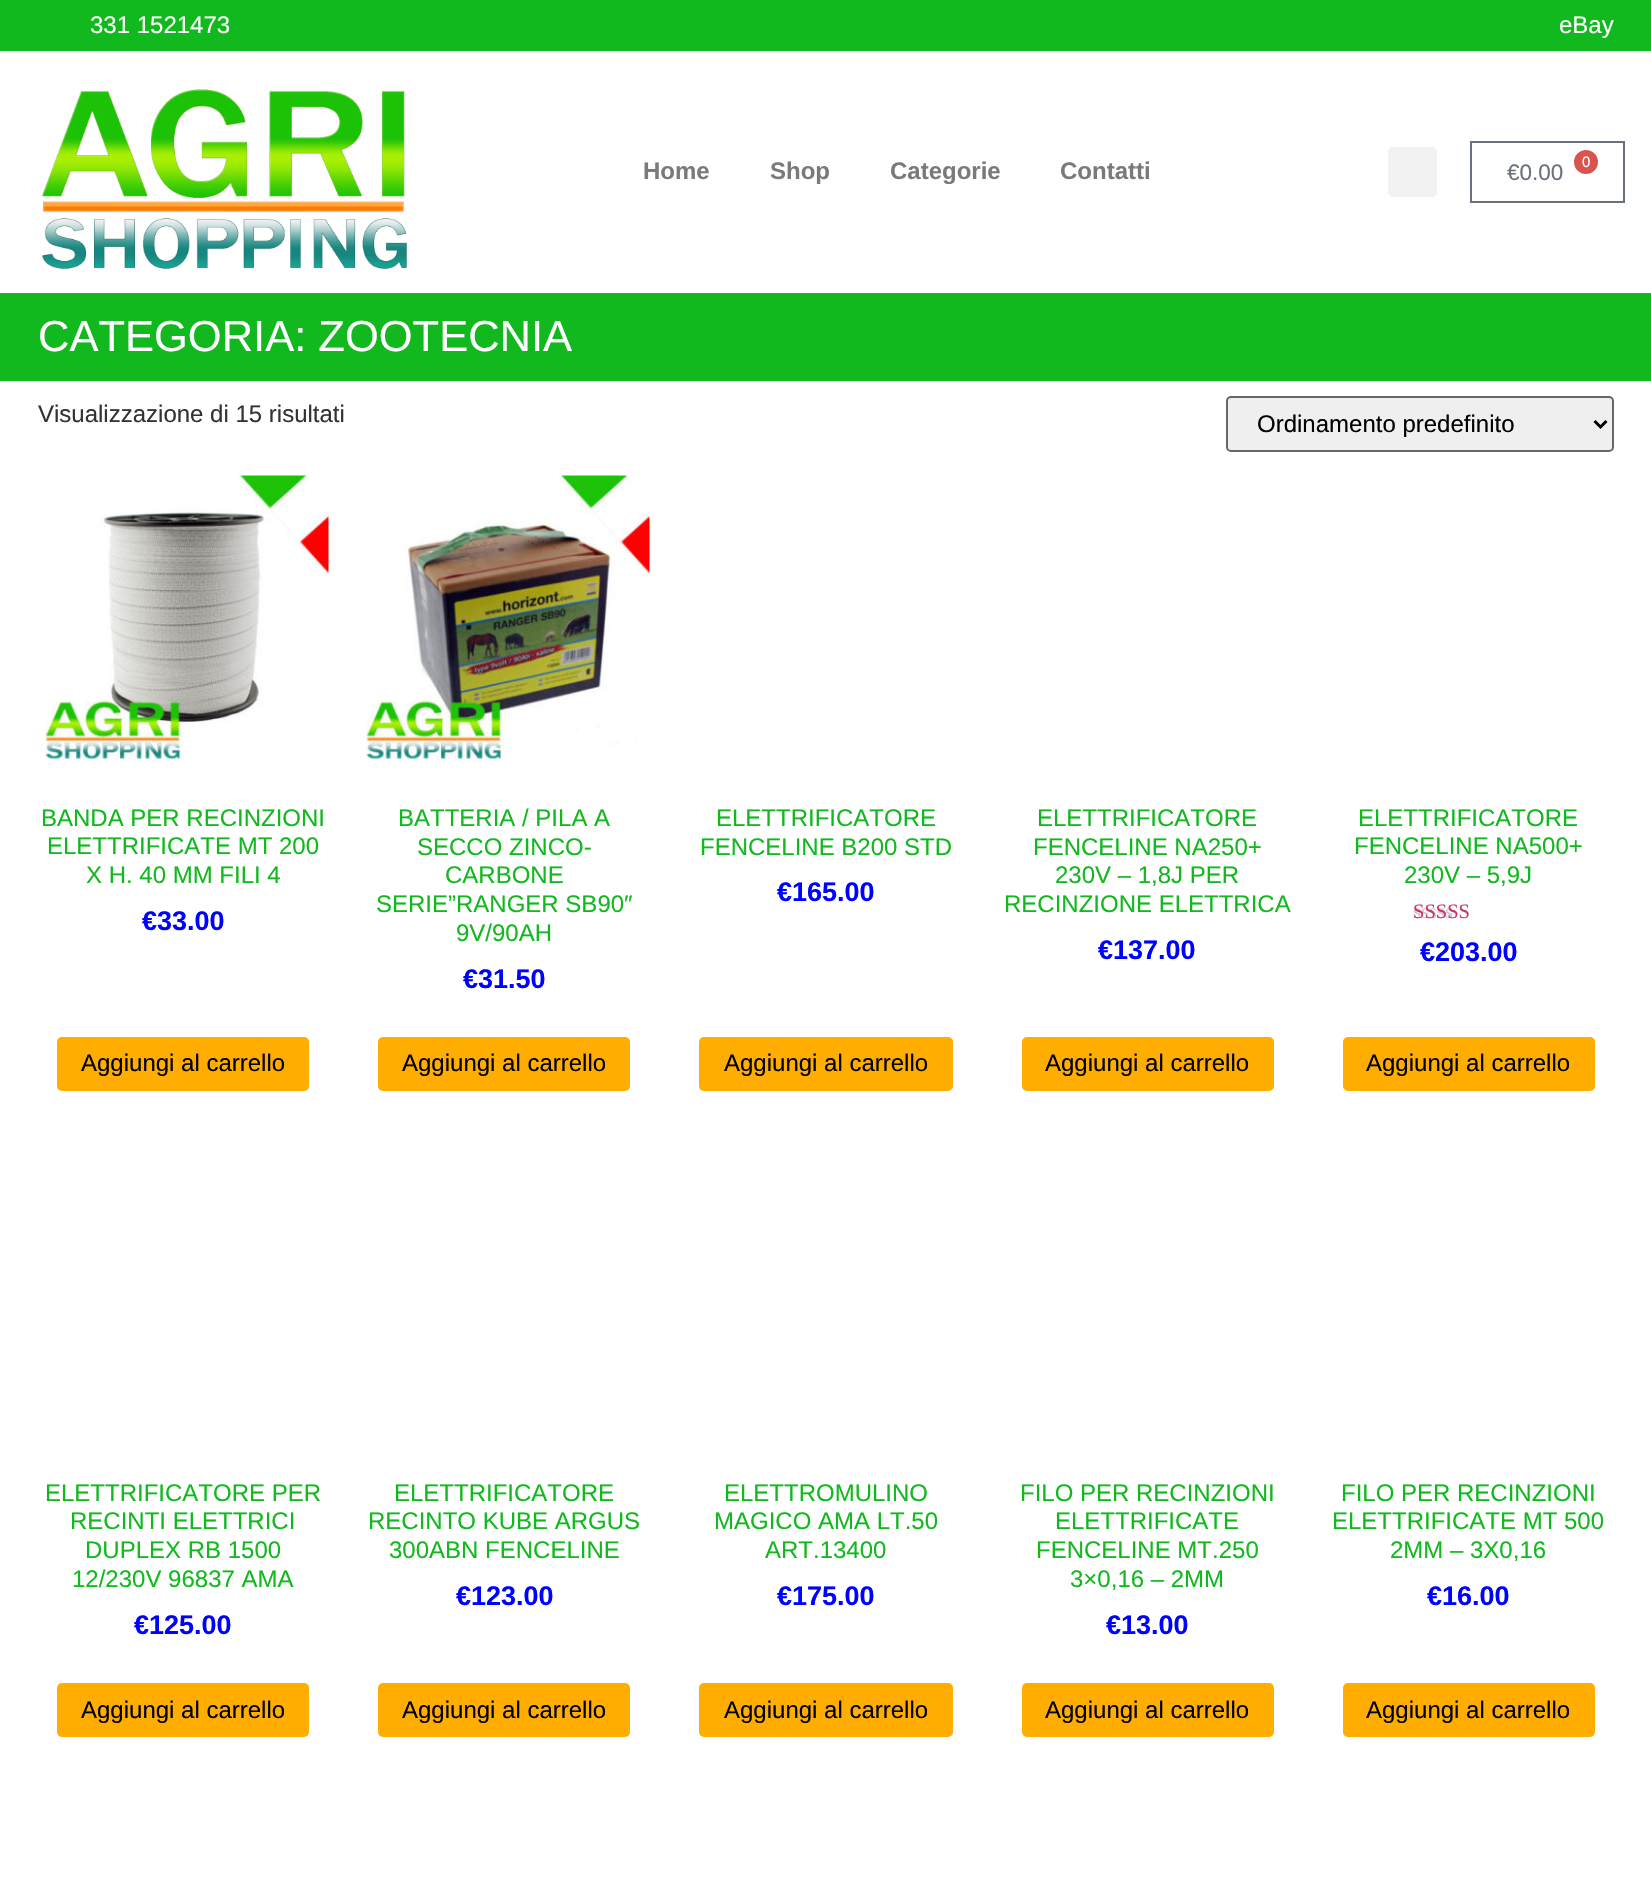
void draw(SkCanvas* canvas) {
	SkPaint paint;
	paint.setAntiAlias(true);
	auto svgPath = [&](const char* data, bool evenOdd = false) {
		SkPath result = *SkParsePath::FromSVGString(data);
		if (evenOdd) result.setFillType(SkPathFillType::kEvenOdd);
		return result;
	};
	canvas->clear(0xffffffff);
	paint.setColor(0xff11b81e);
	canvas->drawRect(SkRect::MakeXYWH(0, 0, 1651, 51), paint);
	SkFont f1(fontMgr->matchFamilyStyle("Liberation Sans", SkFontStyle::Normal()), 24);
	f1.setSubpixel(true);
	paint.setColor(0xffffffff);
	canvas->drawString("331 1521473", 90, 33, f1, paint);
	canvas->drawString("eBay", 1559, 33, f1, paint);
	canvas->drawImageRect(SkImages::DeferredFromEncodedData(SkData::MakeFromFileName("img1.png")), SkRect::MakeXYWH(42, 89, 365, 180), SkSamplingOptions());
	SkFont f2(fontMgr->matchFamilyStyle("Liberation Sans", SkFontStyle::Bold()), 24);
	f2.setSubpixel(true);
	paint.setColor(0xff7a7a7a);
	canvas->drawString("Home", 643, 179, f2, paint);
	canvas->drawString("Shop", 770, 179, f2, paint);
	canvas->drawString("Categorie", 890, 179, f2, paint);
	canvas->drawString("Contatti", 1060, 179, f2, paint);
	paint.setColor(0xfff2f2f2);
	canvas->drawRoundRect(SkRect::MakeXYWH(1388, 147, 49, 50), 5, 5, paint);
	paint.setStroke(true);
	paint.setStrokeWidth(2);
	paint.setColor(0xff69727d);
	canvas->drawRect(SkRect::MakeXYWH(1471, 142, 153, 60), paint);
	paint.setStroke(false);
	paint.setColor(0xffd9534f);
	canvas->drawCircle(1586, 162, 12, paint);
	SkFont f3(fontMgr->matchFamilyStyle("Liberation Sans", SkFontStyle::Normal()), 15);
	f3.setSubpixel(true);
	paint.setColor(0xffffffff);
	canvas->drawString("0", 1582, 167, f3, paint);
	SkFont f4(fontMgr->matchFamilyStyle("Liberation Sans", SkFontStyle::Normal()), 22.5);
	f4.setSubpixel(true);
	paint.setColor(0xff69727d);
	canvas->drawString("€0.00", 1507, 180, f4, paint);
	paint.setColor(0xff11b81e);
	canvas->drawRect(SkRect::MakeXYWH(0, 293, 1651, 88), paint);
	SkFont f5(fontMgr->matchFamilyStyle("Liberation Sans", SkFontStyle::Normal()), 43.5);
	f5.setSubpixel(true);
	paint.setColor(0xffffffff);
	canvas->drawString("CATEGORIA: ZOOTECNIA", 38, 351, f5, paint);
	paint.setColor(0xff333333);
	canvas->drawString("Visualizzazione di 15 risultati", 38, 422, f1, paint);
	paint.setColor(0xffefefef);
	canvas->drawRoundRect(SkRect::MakeXYWH(1227, 397, 386, 54), 4, 4, paint);
	paint.setStroke(true);
	paint.setColor(0xff666666);
	canvas->drawRoundRect(SkRect::MakeXYWH(1227, 397, 386, 54), 4, 4, paint);
	paint.setStrokeWidth(3);
	paint.setColor(0xff000000);
	canvas->drawPath(svgPath("M1594.5 421L1600.5 427L1606.5 421"), paint);
	paint.setStroke(false);
	canvas->drawString("Ordinamento predefinito", 1257, 432, f1, paint);
	canvas->drawImageRect(SkImages::DeferredFromEncodedData(SkData::MakeFromFileName("img2.png")), SkRect::MakeXYWH(45, 475, 284, 288), SkSamplingOptions());
	paint.setColor(0xff11b81e);
	canvas->drawString("BANDA PER RECINZIONI", 41, 826, f1, paint);
	canvas->drawString("ELETTRIFICATE MT 200", 47, 854, f1, paint);
	canvas->drawString("X H. 40 MM FILI 4", 86, 883, f1, paint);
	SkFont f6(fontMgr->matchFamilyStyle("Liberation Sans", SkFontStyle::Bold()), 27);
	f6.setSubpixel(true);
	paint.setColor(0xff0002ff);
	canvas->drawString("€33.00", 142, 930, f6, paint);
	paint.setColor(0xffffad00);
	canvas->drawRoundRect(SkRect::MakeXYWH(57, 1037, 252, 54), 5, 5, paint);
	paint.setColor(0xff000000);
	canvas->drawString("Aggiungi al carrello", 81, 1071, f1, paint);
	canvas->drawImageRect(SkImages::DeferredFromEncodedData(SkData::MakeFromFileName("img3.png")), SkRect::MakeXYWH(366, 475, 284, 288), SkSamplingOptions());
	paint.setColor(0xff11b81e);
	canvas->drawString("BATTERIA / PILA A", 398, 826, f1, paint);
	canvas->drawString("SECCO ZINCO-", 417, 855, f1, paint);
	canvas->drawString("CARBONE", 445, 883, f1, paint);
	canvas->drawString("SERIE”RANGER SB90″", 376, 912, f1, paint);
	canvas->drawString("9V/90AH", 456, 941, f1, paint);
	paint.setColor(0xff0002ff);
	canvas->drawString("€31.50", 463, 988, f6, paint);
	paint.setColor(0xffffad00);
	canvas->drawRoundRect(SkRect::MakeXYWH(378, 1037, 252, 54), 5, 5, paint);
	paint.setColor(0xff000000);
	canvas->drawString("Aggiungi al carrello", 402, 1071, f1, paint);
	paint.setColor(0xff11b81e);
	canvas->drawString("ELETTRIFICATORE", 716, 826, f1, paint);
	canvas->drawString("FENCELINE B200 STD", 700, 855, f1, paint);
	paint.setColor(0xff0002ff);
	canvas->drawString("€165.00", 777, 901, f6, paint);
	paint.setColor(0xffffad00);
	canvas->drawRoundRect(SkRect::MakeXYWH(699, 1037, 254, 54), 5, 5, paint);
	paint.setColor(0xff000000);
	canvas->drawString("Aggiungi al carrello", 724, 1071, f1, paint);
	paint.setColor(0xff11b81e);
	canvas->drawString("ELETTRIFICATORE", 1037, 826, f1, paint);
	canvas->drawString("FENCELINE NA250+", 1033, 855, f1, paint);
	canvas->drawString("230V – 1,8J PER", 1055, 883, f1, paint);
	canvas->drawString("RECINZIONE ELETTRICA", 1004, 912, f1, paint);
	paint.setColor(0xff0002ff);
	canvas->drawString("€137.00", 1098, 959, f6, paint);
	paint.setColor(0xffffad00);
	canvas->drawRoundRect(SkRect::MakeXYWH(1022, 1037, 252, 54), 5, 5, paint);
	paint.setColor(0xff000000);
	canvas->drawString("Aggiungi al carrello", 1045, 1071, f1, paint);
	paint.setColor(0xff11b81e);
	canvas->drawString("ELETTRIFICATORE", 1358, 826, f1, paint);
	canvas->drawString("FENCELINE NA500+", 1354, 854, f1, paint);
	canvas->drawString("230V – 5,9J", 1404, 883, f1, paint);
	SkFont f7(fontMgr->matchFamilyStyle("Liberation Serif", SkFontStyle::Normal()), 20.5);
	f7.setSubpixel(true);
	paint.setColor(0xffcfc8d8);
	canvas->drawString("sssss", 1413, 918, f7, paint);
	paint.setColor(0xffcc3366);
	canvas->drawString("SSSSS", 1413, 918, f7, paint);
	paint.setColor(0xff0002ff);
	canvas->drawString("€203.00", 1420, 961, f6, paint);
	paint.setColor(0xffffad00);
	canvas->drawRoundRect(SkRect::MakeXYWH(1343, 1037, 252, 54), 5, 5, paint);
	paint.setColor(0xff000000);
	canvas->drawString("Aggiungi al carrello", 1366, 1071, f1, paint);
	paint.setColor(0xff11b81e);
	canvas->drawString("ELETTRIFICATORE PER", 45, 1501, f1, paint);
	canvas->drawString("RECINTI ELETTRICI", 70, 1529, f1, paint);
	canvas->drawString("DUPLEX RB 1500", 85, 1558, f1, paint);
	canvas->drawString("12/230V 96837 AMA", 72, 1587, f1, paint);
	paint.setColor(0xff0002ff);
	canvas->drawString("€125.00", 134, 1634, f6, paint);
	paint.setColor(0xffffad00);
	canvas->drawRoundRect(SkRect::MakeXYWH(57, 1683, 252, 54), 5, 5, paint);
	paint.setColor(0xff000000);
	canvas->drawString("Aggiungi al carrello", 81, 1718, f1, paint);
	paint.setColor(0xff11b81e);
	canvas->drawString("ELETTRIFICATORE", 394, 1501, f1, paint);
	canvas->drawString("RECINTO KUBE ARGUS", 368, 1529, f1, paint);
	canvas->drawString("300ABN FENCELINE", 389, 1558, f1, paint);
	paint.setColor(0xff0002ff);
	canvas->drawString("€123.00", 456, 1605, f6, paint);
	paint.setColor(0xffffad00);
	canvas->drawRoundRect(SkRect::MakeXYWH(378, 1683, 252, 54), 5, 5, paint);
	paint.setColor(0xff000000);
	canvas->drawString("Aggiungi al carrello", 402, 1718, f1, paint);
	paint.setColor(0xff11b81e);
	canvas->drawString("ELETTROMULINO", 724, 1501, f1, paint);
	canvas->drawString("MAGICO AMA LT.50", 714, 1529, f1, paint);
	canvas->drawString("ART.13400", 765, 1558, f1, paint);
	paint.setColor(0xff0002ff);
	canvas->drawString("€175.00", 777, 1605, f6, paint);
	paint.setColor(0xffffad00);
	canvas->drawRoundRect(SkRect::MakeXYWH(699, 1683, 254, 54), 5, 5, paint);
	paint.setColor(0xff000000);
	canvas->drawString("Aggiungi al carrello", 724, 1718, f1, paint);
	paint.setColor(0xff11b81e);
	canvas->drawString("FILO PER RECINZIONI", 1020, 1501, f1, paint);
	canvas->drawString("ELETTRIFICATE", 1055, 1529, f1, paint);
	canvas->drawString("FENCELINE MT.250", 1036, 1558, f1, paint);
	canvas->drawString("3×0,16 – 2MM", 1070, 1587, f1, paint);
	paint.setColor(0xff0002ff);
	canvas->drawString("€13.00", 1106, 1634, f6, paint);
	paint.setColor(0xffffad00);
	canvas->drawRoundRect(SkRect::MakeXYWH(1022, 1683, 252, 54), 5, 5, paint);
	paint.setColor(0xff000000);
	canvas->drawString("Aggiungi al carrello", 1045, 1718, f1, paint);
	paint.setColor(0xff11b81e);
	canvas->drawString("FILO PER RECINZIONI", 1341, 1501, f1, paint);
	canvas->drawString("ELETTRIFICATE MT 500", 1332, 1529, f1, paint);
	canvas->drawString("2MM – 3X0,16", 1390, 1558, f1, paint);
	paint.setColor(0xff0002ff);
	canvas->drawString("€16.00", 1427, 1605, f6, paint);
	paint.setColor(0xffffad00);
	canvas->drawRoundRect(SkRect::MakeXYWH(1343, 1683, 252, 54), 5, 5, paint);
	paint.setColor(0xff000000);
	canvas->drawString("Aggiungi al carrello", 1366, 1718, f1, paint);
}
